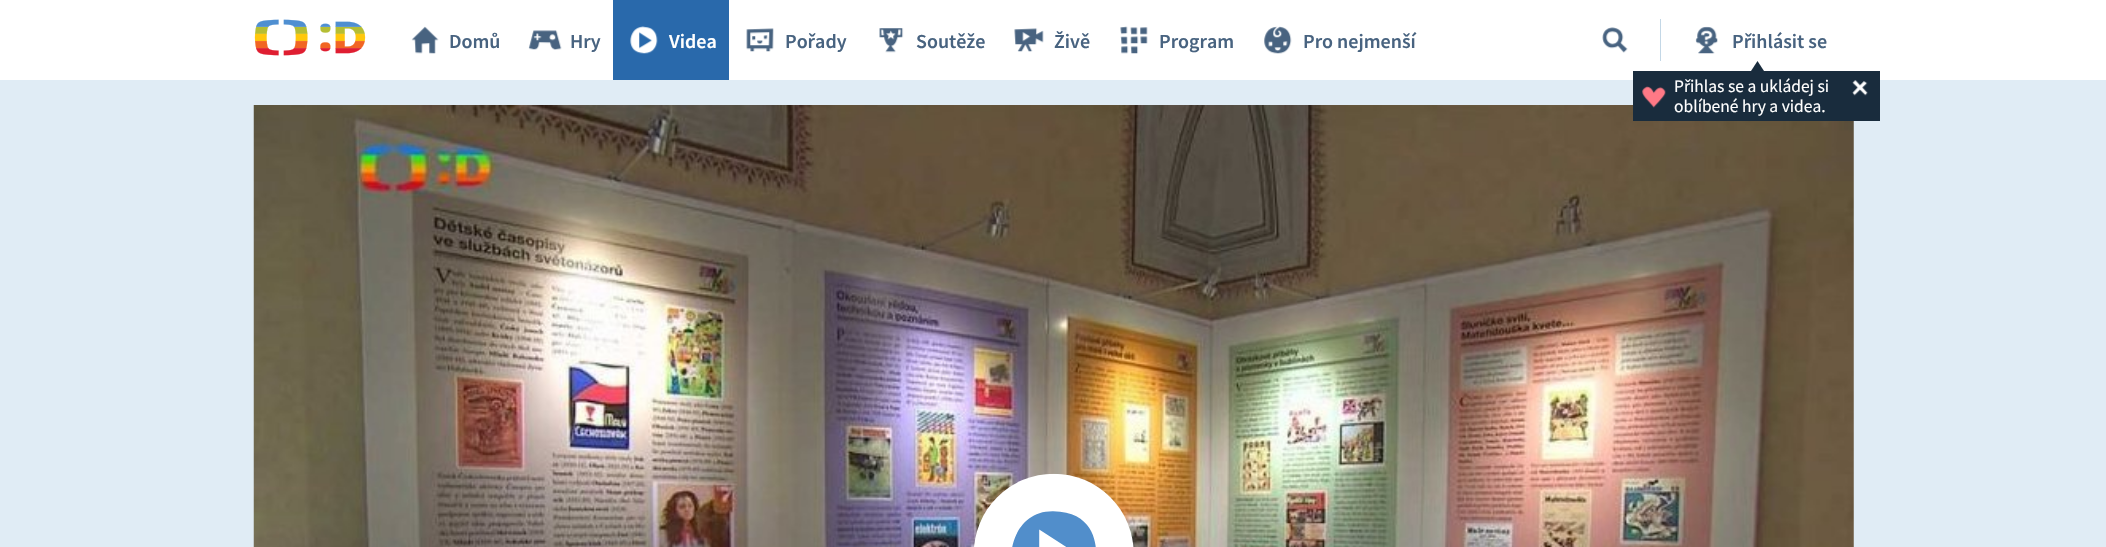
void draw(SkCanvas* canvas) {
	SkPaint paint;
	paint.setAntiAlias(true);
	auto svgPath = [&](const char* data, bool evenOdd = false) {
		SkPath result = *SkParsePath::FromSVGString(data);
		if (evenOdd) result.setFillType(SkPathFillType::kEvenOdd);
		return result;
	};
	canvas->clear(0xffe0ecf5);
	paint.setColor(0xffffffff);
	canvas->drawRect(SkRect::MakeXYWH(0, 0, 2106, 80), paint);
	canvas->drawImageRect(SkImages::DeferredFromEncodedData(SkData::MakeFromFileName("img1.png")), SkRect::MakeXYWH(254, 19, 112, 37), SkSamplingOptions());
	canvas->drawImageRect(SkImages::DeferredFromEncodedData(SkData::MakeFromFileName("img2.png")), SkRect::MakeXYWH(411, 26, 28, 28), SkSamplingOptions());
	SkFont f1(fontMgr->matchFamilyStyle("Source Sans Pro", SkFontStyle(600, SkFontStyle::kNormal_Width, SkFontStyle::kUpright_Slant)), 20);
	f1.setSubpixel(true);
	paint.setColor(0xff486380);
	canvas->drawString("Domů", 449, 48, f1, paint);
	canvas->drawImageRect(SkImages::DeferredFromEncodedData(SkData::MakeFromFileName("img3.png")), SkRect::MakeXYWH(528, 30, 34, 20), SkSamplingOptions());
	canvas->drawString("Hry", 570, 48, f1, paint);
	paint.setColor(0xff2969ab);
	canvas->drawRect(SkRect::MakeXYWH(613, 0, 116, 80), paint);
	canvas->drawImageRect(SkImages::DeferredFromEncodedData(SkData::MakeFromFileName("img4.png")), SkRect::MakeXYWH(630, 26, 28, 28), SkSamplingOptions());
	paint.setColor(0xffffffff);
	canvas->drawString("Videa", 669, 48, f1, paint);
	canvas->drawImageRect(SkImages::DeferredFromEncodedData(SkData::MakeFromFileName("img5.png")), SkRect::MakeXYWH(746, 28, 28, 24), SkSamplingOptions());
	paint.setColor(0xff486380);
	canvas->drawString("Pořady", 785, 48, f1, paint);
	canvas->drawImageRect(SkImages::DeferredFromEncodedData(SkData::MakeFromFileName("img6.png")), SkRect::MakeXYWH(879, 28, 25, 25), SkSamplingOptions());
	canvas->drawString("Soutěže", 916, 48, f1, paint);
	canvas->drawImageRect(SkImages::DeferredFromEncodedData(SkData::MakeFromFileName("img7.png")), SkRect::MakeXYWH(1014, 28, 30, 24), SkSamplingOptions());
	canvas->drawString("Živě", 1054, 48, f1, paint);
	canvas->drawImageRect(SkImages::DeferredFromEncodedData(SkData::MakeFromFileName("img8.png")), SkRect::MakeXYWH(1120, 26, 28, 28), SkSamplingOptions());
	canvas->drawString("Program", 1159, 48, f1, paint);
	canvas->drawImageRect(SkImages::DeferredFromEncodedData(SkData::MakeFromFileName("img9.png")), SkRect::MakeXYWH(1264, 26, 28, 28), SkSamplingOptions());
	canvas->drawString("Pro nejmenší", 1303, 48, f1, paint);
	canvas->drawImageRect(SkImages::DeferredFromEncodedData(SkData::MakeFromFileName("img10.png")), SkRect::MakeXYWH(1602, 27, 26, 26), SkSamplingOptions());
	paint.setColor(0xffc3d7e6);
	canvas->drawRect(SkRect::MakeXYWH(1660, 19, 1, 42), paint);
	canvas->drawImageRect(SkImages::DeferredFromEncodedData(SkData::MakeFromFileName("img11.png")), SkRect::MakeXYWH(1695, 26, 23, 28), SkSamplingOptions());
	paint.setColor(0xff486380);
	canvas->drawString("Přihlásit se", 1732, 48, f1, paint);
	canvas->drawImageRect(SkImages::DeferredFromEncodedData(SkData::MakeFromFileName("img14.png")), SkRect::MakeXYWH(253, 105, 1601, 442), SkSamplingOptions());
	paint.setColor(0xff192c3d);
	canvas->drawRect(SkRect::MakeXYWH(1633, 71, 247, 50), paint);
	canvas->drawPath(svgPath("M1764 71H1751L1757.5 61Z"), paint);
	canvas->drawImageRect(SkImages::DeferredFromEncodedData(SkData::MakeFromFileName("img12.png")), SkRect::MakeXYWH(1642, 86, 24, 22), SkSamplingOptions());
	SkFont f2(fontMgr->matchFamilyStyle("Source Sans Pro", SkFontStyle::Normal()), 17.5);
	f2.setSubpixel(true);
	paint.setColor(0xffffffff);
	canvas->drawString("Přihlas se a ukládej si", 1674, 92, f2, paint);
	canvas->drawString("oblíbené hry a videa.", 1674, 112, f2, paint);
	canvas->drawImageRect(SkImages::DeferredFromEncodedData(SkData::MakeFromFileName("img13.png")), SkRect::MakeXYWH(1852, 80, 16, 16), SkSamplingOptions());
	canvas->drawImageRect(SkImages::DeferredFromEncodedData(SkData::MakeFromFileName("img15.png")), SkRect::MakeXYWH(974, 473, 160, 74), SkSamplingOptions());
}
